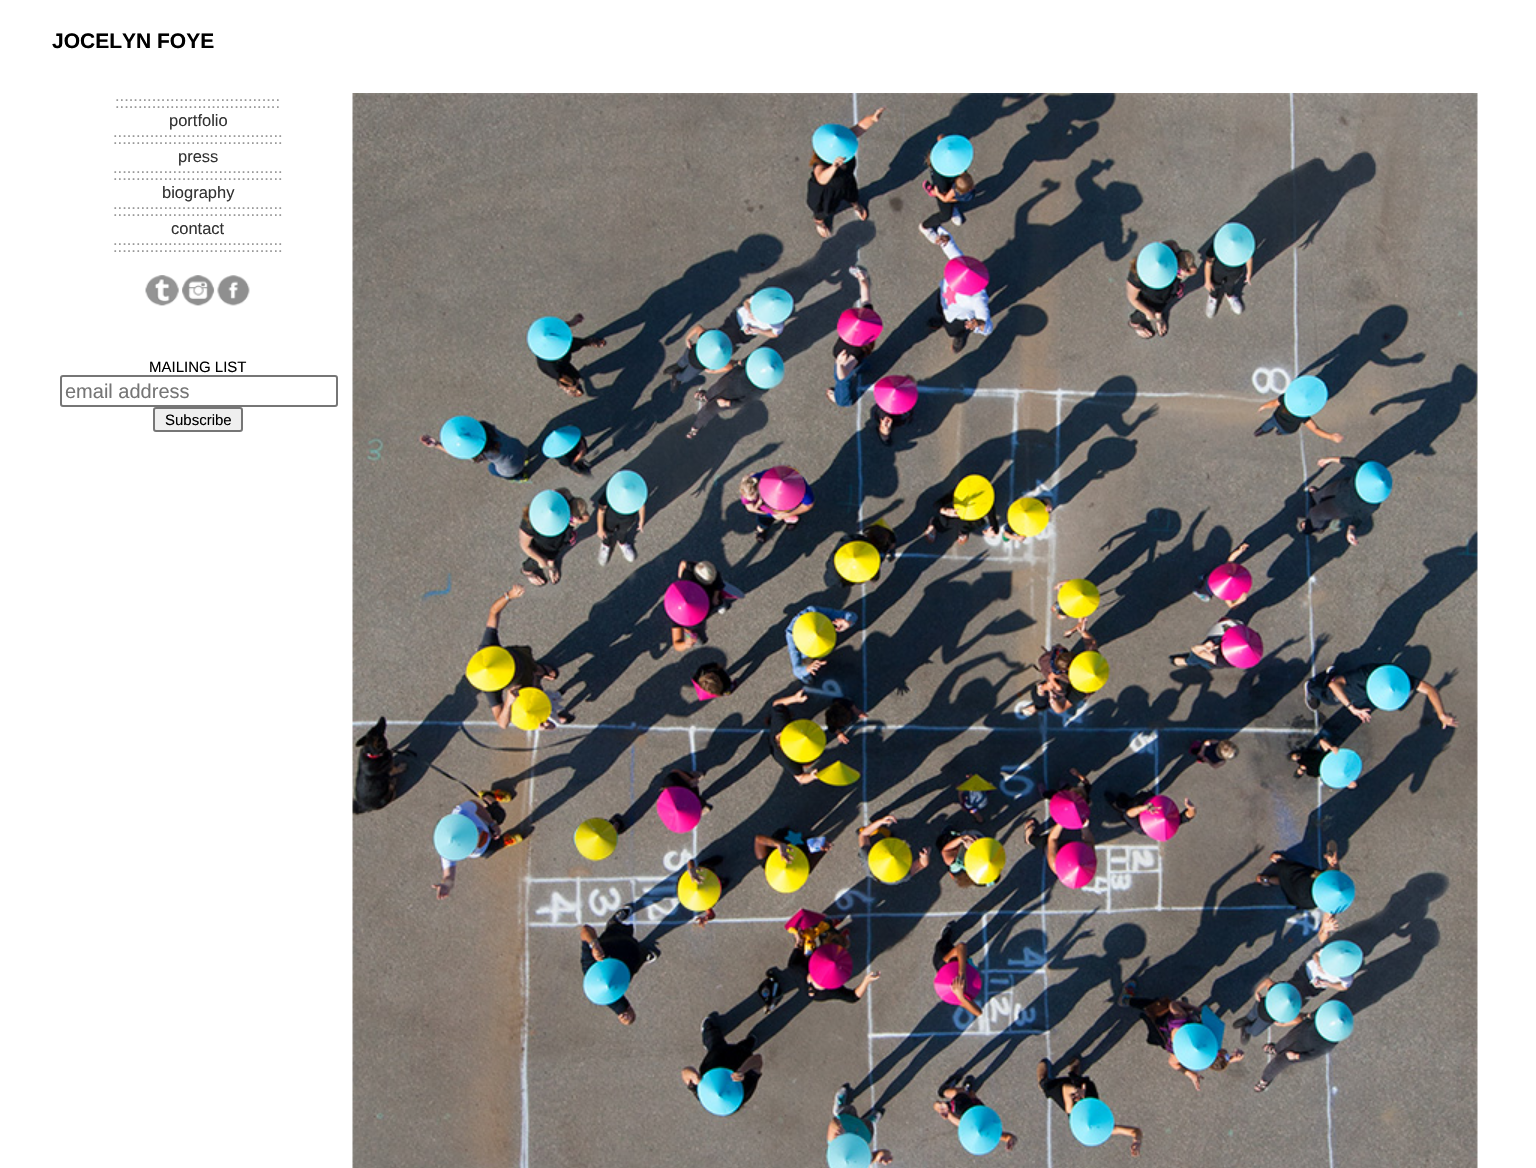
void draw(SkCanvas* canvas) {
	SkPaint paint;
	paint.setAntiAlias(true);
	canvas->clear(0xffffffff);
	SkFont f1(fontMgr->matchFamilyStyle("Liberation Sans", SkFontStyle::Bold()), 21);
	f1.setSubpixel(true);
	paint.setColor(0xff000000);
	canvas->drawString("JOCELYN FOYE", 52, 48, f1, paint);
	SkFont f2(fontMgr->matchFamilyStyle("Liberation Sans", SkFontStyle::Normal()), 16.5);
	f2.setSubpixel(true);
	paint.setColor(0xff999999);
	canvas->drawString("::::::::::::::::::::::::::::::::::::", 115, 108, f2, paint);
	paint.setColor(0xff333333);
	canvas->drawString("portfolio", 169, 126, f2, paint);
	paint.setColor(0xff999999);
	canvas->drawString(":::::::::::::::::::::::::::::::::::::", 113, 144, f2, paint);
	paint.setColor(0xff333333);
	canvas->drawString("press", 178, 162, f2, paint);
	paint.setColor(0xff999999);
	canvas->drawString(":::::::::::::::::::::::::::::::::::::", 113, 180, f2, paint);
	paint.setColor(0xff333333);
	canvas->drawString("biography", 162, 198, f2, paint);
	paint.setColor(0xff999999);
	canvas->drawString(":::::::::::::::::::::::::::::::::::::", 113, 216, f2, paint);
	paint.setColor(0xff333333);
	canvas->drawString("contact", 171, 234, f2, paint);
	paint.setColor(0xff999999);
	canvas->drawString(":::::::::::::::::::::::::::::::::::::", 113, 252, f2, paint);
	canvas->drawImageRect(SkImages::DeferredFromEncodedData(SkData::MakeFromFileName("img1.png")), SkRect::MakeXYWH(145, 275, 105, 31), SkSamplingOptions());
	SkFont f3(fontMgr->matchFamilyStyle("Liberation Sans", SkFontStyle::Normal()), 15);
	f3.setSubpixel(true);
	paint.setColor(0xff000000);
	canvas->drawString("MAILING LIST", 149, 372, f3, paint);
	paint.setStroke(true);
	paint.setStrokeWidth(2);
	paint.setColor(0xff767676);
	canvas->drawRoundRect(SkRect::MakeXYWH(61, 376, 276, 30), 2, 2, paint);
	SkFont f4(fontMgr->matchFamilyStyle("Liberation Sans", SkFontStyle::Normal()), 20);
	f4.setSubpixel(true);
	paint.setStroke(false);
	paint.setColor(0xff757575);
	canvas->drawString("email address", 65, 398, f4, paint);
	paint.setColor(0xffefefef);
	canvas->drawRoundRect(SkRect::MakeXYWH(154, 408, 88, 23), 2, 2, paint);
	paint.setStroke(true);
	paint.setColor(0xff767676);
	canvas->drawRoundRect(SkRect::MakeXYWH(154, 408, 88, 23), 2, 2, paint);
	paint.setStroke(false);
	paint.setColor(0xff000000);
	canvas->drawString("Subscribe", 165, 425, f3, paint);
	canvas->drawImageRect(SkImages::DeferredFromEncodedData(SkData::MakeFromFileName("img2.png")), SkRect::MakeXYWH(352, 93, 1126, 1075), SkSamplingOptions());
}
